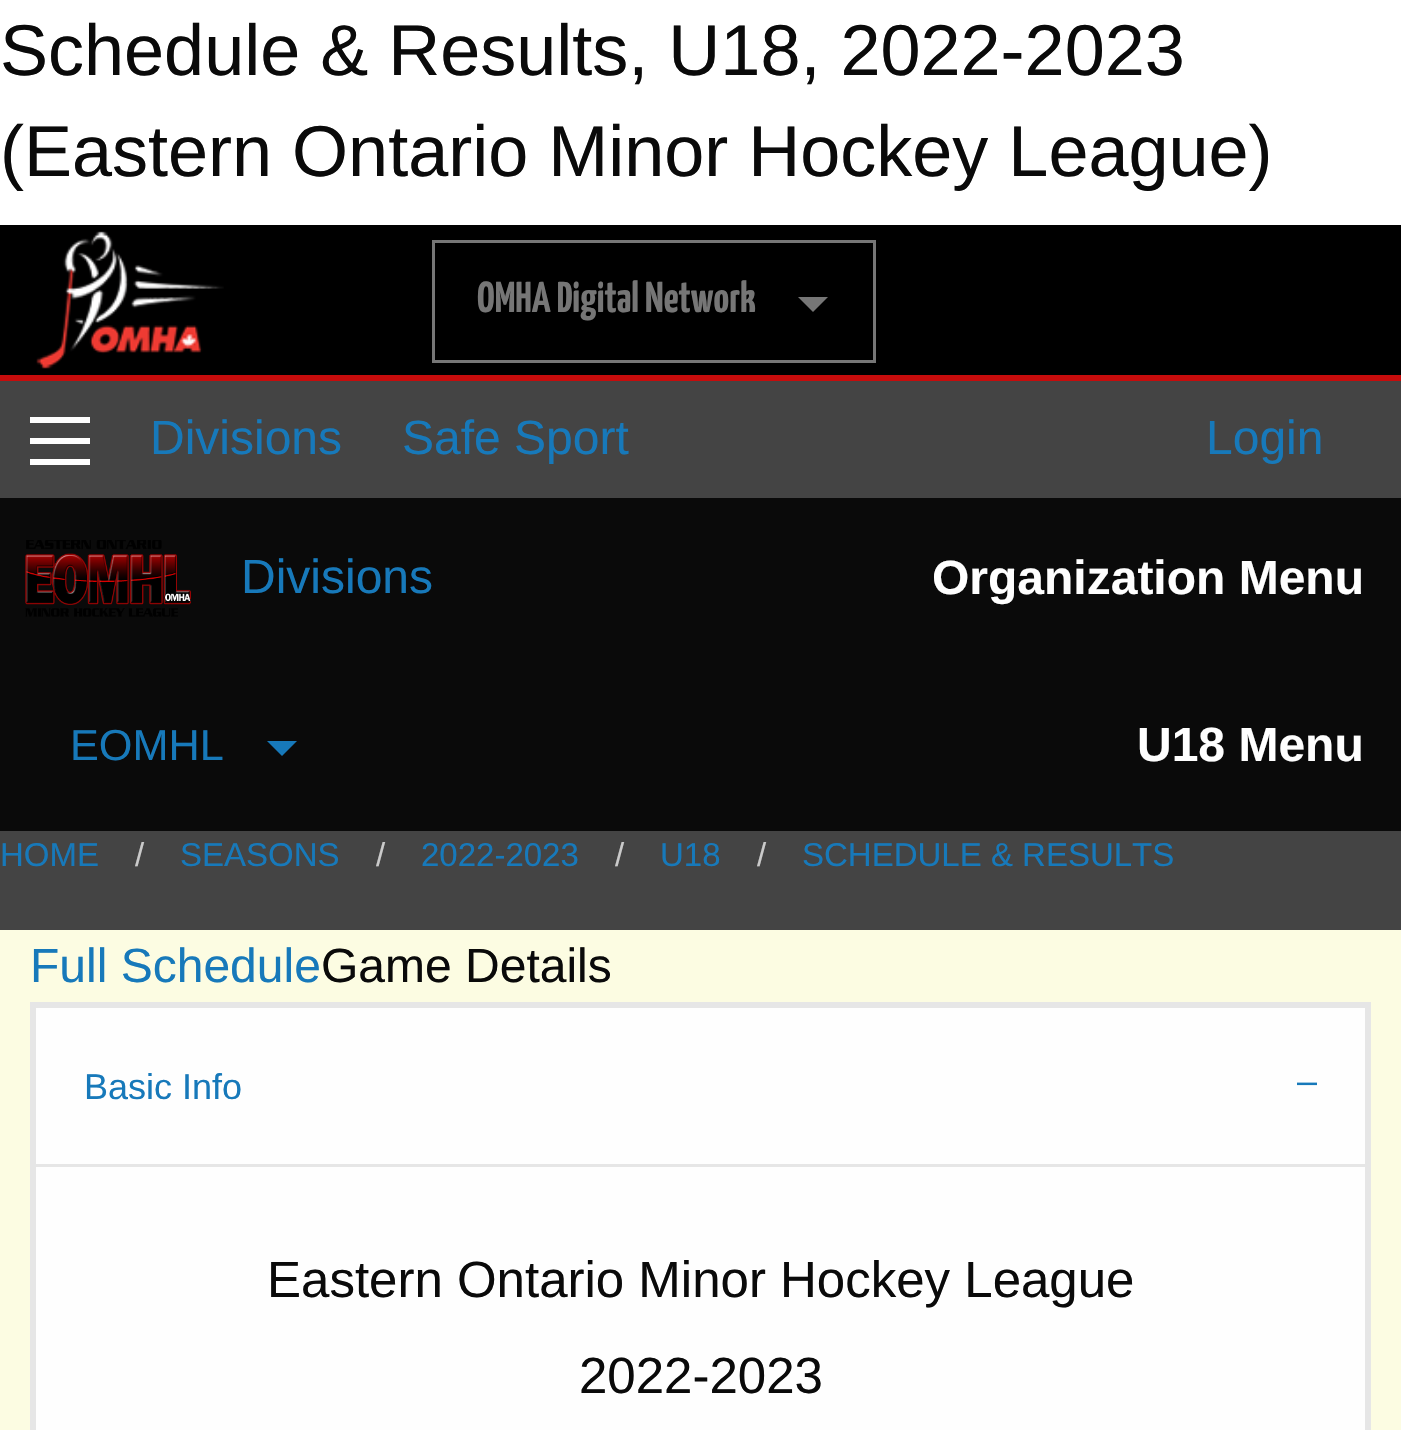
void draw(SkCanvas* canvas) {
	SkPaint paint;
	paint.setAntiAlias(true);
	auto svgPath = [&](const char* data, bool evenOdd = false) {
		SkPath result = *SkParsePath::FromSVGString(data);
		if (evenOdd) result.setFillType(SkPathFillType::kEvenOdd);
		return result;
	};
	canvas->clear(0xffffffff);
	SkFont f1(fontMgr->matchFamilyStyle("Liberation Sans", SkFontStyle::Normal()), 72);
	f1.setSubpixel(true);
	paint.setColor(0xff0a0a0a);
	canvas->drawString("Schedule & Results, U18, 2022-2023", 0, 75, f1, paint);
	canvas->drawString("(Eastern Ontario Minor Hockey League)", 0, 176, f1, paint);
	paint.setColor(0xff000000);
	canvas->drawRect(SkRect::MakeXYWH(0, 225, 1401, 150), paint);
	paint.setColor(0xffc60c0c);
	canvas->drawRect(SkRect::MakeXYWH(0, 375, 1401, 6), paint);
	canvas->drawImageRect(SkImages::DeferredFromEncodedData(SkData::MakeFromFileName("img1.png")), SkRect::MakeXYWH(36, 231, 188, 138), SkSamplingOptions());
	paint.setStroke(true);
	paint.setStrokeWidth(3);
	paint.setColor(0xff767676);
	canvas->drawRect(SkRect::MakeXYWH(433.5, 241.5, 441, 120), paint);
	SkFont f2(fontMgr->matchFamilyStyle("Yanone Kaffeesatz", SkFontStyle(200, SkFontStyle::kNormal_Width, SkFontStyle::kUpright_Slant)), 43.25);
	f2.setSubpixel(true);
	paint.setStroke(false);
	canvas->drawString("OMHA Digital Network", 477, 312, f2, paint);
	canvas->drawPath(svgPath("M798 297H828L813 312Z"), paint);
	paint.setColor(0xff444444);
	canvas->drawRect(SkRect::MakeXYWH(0, 381, 1401, 549), paint);
	paint.setColor(0xfffefefe);
	canvas->drawRect(SkRect::MakeXYWH(30, 459, 60, 6), paint);
	canvas->drawRect(SkRect::MakeXYWH(30, 438, 60, 6), paint);
	canvas->drawRect(SkRect::MakeXYWH(30, 417, 60, 6), paint);
	SkFont f3(fontMgr->matchFamilyStyle("Liberation Sans", SkFontStyle::Normal()), 48);
	f3.setSubpixel(true);
	paint.setColor(0xff1779ba);
	canvas->drawString("Divisions", 150, 454, f3, paint);
	canvas->drawString("Safe Sport", 402, 454, f3, paint);
	canvas->drawString("Login", 1206, 454, f3, paint);
	paint.setColor(0xff0a0a0a);
	canvas->drawRect(SkRect::MakeXYWH(0, 498, 1401, 333), paint);
	canvas->drawImageRect(SkImages::DeferredFromEncodedData(SkData::MakeFromFileName("img2.png")), SkRect::MakeXYWH(25, 540, 166, 77), SkSamplingOptions());
	paint.setColor(0xff1779ba);
	canvas->drawString("Divisions", 241, 593, f3, paint);
	SkFont f4(fontMgr->matchFamilyStyle("Liberation Sans", SkFontStyle::Bold()), 48);
	f4.setSubpixel(true);
	paint.setColor(0xfffefefe);
	canvas->drawString("Organization Menu", 932, 594, f4, paint);
	SkFont f5(fontMgr->matchFamilyStyle("Liberation Sans", SkFontStyle::Normal()), 43.25);
	f5.setSubpixel(true);
	paint.setColor(0xff1779ba);
	canvas->drawString("EOMHL", 70, 760, f5, paint);
	canvas->drawPath(svgPath("M267 741H297L282 756Z"), paint);
	paint.setColor(0xfffefefe);
	canvas->drawString("U18 Menu", 1137, 761, f4, paint);
	SkFont f6(fontMgr->matchFamilyStyle("Liberation Sans", SkFontStyle::Normal()), 33);
	f6.setSubpixel(true);
	paint.setColor(0xff1779ba);
	canvas->drawString("HOME", 0, 866, f6, paint);
	paint.setColor(0xffcacaca);
	canvas->drawString("/", 135, 866, f6, paint);
	paint.setColor(0xff1779ba);
	canvas->drawString("SEASONS", 180, 866, f6, paint);
	paint.setColor(0xffcacaca);
	canvas->drawString("/", 376, 866, f6, paint);
	paint.setColor(0xff1779ba);
	canvas->drawString("2022-2023", 421, 866, f6, paint);
	paint.setColor(0xffcacaca);
	canvas->drawString("/", 615, 866, f6, paint);
	paint.setColor(0xff1779ba);
	canvas->drawString("U18", 660, 866, f6, paint);
	paint.setColor(0xffcacaca);
	canvas->drawString("/", 757, 866, f6, paint);
	paint.setColor(0xff1779ba);
	canvas->drawString("SCHEDULE & RESULTS", 802, 866, f6, paint);
	paint.setColor(0xfffcfce2);
	canvas->drawRect(SkRect::MakeXYWH(0, 930, 1401, 500), paint);
	paint.setColor(0xff1779ba);
	canvas->drawString("Full Schedule", 30, 982, f3, paint);
	paint.setColor(0xff0a0a0a);
	canvas->drawString("Game Details", 321, 982, f3, paint);
	paint.setColor(0xfffefefe);
	canvas->drawRect(SkRect::MakeXYWH(36, 1008, 1329, 422), paint);
	paint.setStroke(true);
	paint.setColor(0xffe6e6e6);
	canvas->drawRect(SkRect::MakeXYWH(31.5, 1003.5, 1338, 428), paint);
	paint.setStroke(false);
	canvas->drawRect(SkRect::MakeXYWH(33, 1005, 1335, 3), paint);
	canvas->drawRect(SkRect::MakeXYWH(1365, 1005, 3, 159), paint);
	canvas->drawRect(SkRect::MakeXYWH(33, 1005, 3, 159), paint);
	SkFont f7(fontMgr->matchFamilyStyle("Liberation Sans", SkFontStyle::Normal()), 36);
	f7.setSubpixel(true);
	paint.setColor(0xff1779ba);
	canvas->drawString("Basic Info", 84, 1099, f7, paint);
	canvas->drawString("–", 1297, 1093, f7, paint);
	paint.setStroke(true);
	paint.setColor(0xffe6e6e6);
	canvas->drawRect(SkRect::MakeXYWH(34.5, 1165.5, 1332, 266), paint);
	SkFont f8(fontMgr->matchFamilyStyle("Liberation Sans", SkFontStyle::Normal()), 51);
	f8.setSubpixel(true);
	paint.setStroke(false);
	paint.setColor(0xff0a0a0a);
	canvas->drawString("Eastern Ontario Minor Hockey League", 267, 1297, f8, paint);
	canvas->drawString("2022-2023", 579, 1393, f8, paint);
}
